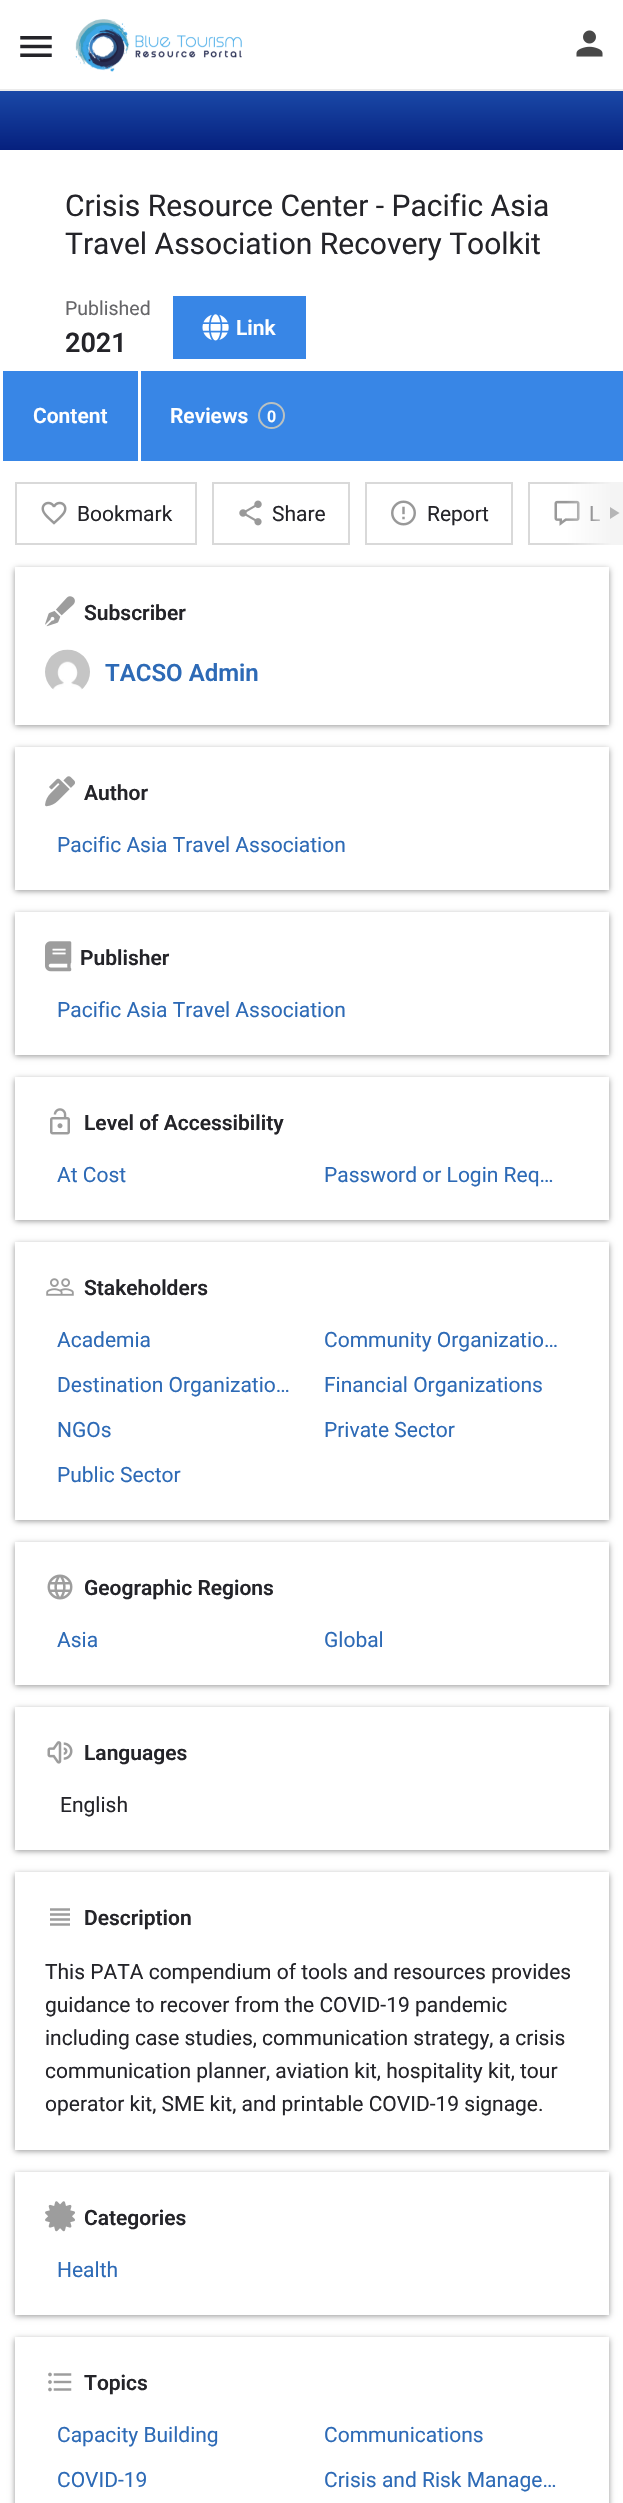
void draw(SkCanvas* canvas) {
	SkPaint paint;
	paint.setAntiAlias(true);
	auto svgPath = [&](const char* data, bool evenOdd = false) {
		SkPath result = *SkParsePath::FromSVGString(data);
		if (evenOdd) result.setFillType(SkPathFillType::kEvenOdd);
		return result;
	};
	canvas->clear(0xffffffff);
	canvas->drawImageRect(SkImages::DeferredFromEncodedData(SkData::MakeFromFileName("img1.png")), SkRect::MakeXYWH(20, 36, 32, 21), SkSamplingOptions());
	canvas->drawImageRect(SkImages::DeferredFromEncodedData(SkData::MakeFromFileName("img2.png")), SkRect::MakeXYWH(75, 19, 167, 53), SkSamplingOptions());
	canvas->drawImageRect(SkImages::DeferredFromEncodedData(SkData::MakeFromFileName("img3.png")), SkRect::MakeXYWH(576, 30, 27, 27), SkSamplingOptions());
	paint.setColor(0xffebebeb);
	canvas->drawRect(SkRect::MakeXYWH(0, 89, 623, 2), paint);
	{
		const SkColor colors[] = {0xff3886e6, 0xff06207e};
		const float stops[] = {0, 1};
		const SkPoint ends[] = {{312, 0}, {312, 150}};
		paint.setShader(SkGradientShader::MakeLinear(ends, colors, stops, 2, SkTileMode::kClamp));
		paint.setAlpha(255);
	}
	canvas->drawRect(SkRect::MakeXYWH(0, 91, 623, 59), paint);
	SkFont f1(fontMgr->matchFamilyStyle("Roboto", SkFontStyle::Normal()), 30);
	f1.setSubpixel(true);
	paint.setShader(nullptr);
	paint.setColor(0xff242429);
	canvas->drawString("Crisis Resource Center - Pacific Asia", 65, 216, f1, paint);
	canvas->drawString("Travel Association Recovery Toolkit", 65, 254, f1, paint);
	SkFont f2(fontMgr->matchFamilyStyle("Roboto", SkFontStyle::Normal()), 19.5);
	f2.setSubpixel(true);
	paint.setColor(0xff666669);
	canvas->drawString("Published", 65, 315, f2, paint);
	SkFont f3(fontMgr->matchFamilyStyle("Roboto", SkFontStyle(600, SkFontStyle::kNormal_Width, SkFontStyle::kUpright_Slant)), 27);
	f3.setSubpixel(true);
	paint.setColor(0xff242429);
	canvas->drawString("2021", 65, 352, f3, paint);
	paint.setColor(0xff3886e6);
	canvas->drawRect(SkRect::MakeXYWH(173, 296, 133, 63), paint);
	canvas->drawImageRect(SkImages::DeferredFromEncodedData(SkData::MakeFromFileName("img4.png")), SkRect::MakeXYWH(202, 314, 27, 27), SkSamplingOptions());
	SkFont f4(fontMgr->matchFamilyStyle("Roboto", SkFontStyle(600, SkFontStyle::kNormal_Width, SkFontStyle::kUpright_Slant)), 21);
	f4.setSubpixel(true);
	paint.setColor(0xffffffff);
	canvas->drawString("Link", 236, 335, f4, paint);
	paint.setColor(0xff3886e6);
	canvas->drawRect(SkRect::MakeXYWH(3, 371, 620, 90), paint);
	paint.setColor(0xffffffff);
	canvas->drawRect(SkRect::MakeXYWH(138, 371, 3, 90), paint);
	canvas->drawString("Content", 33, 423, f4, paint);
	canvas->drawString("Reviews", 170, 423, f4, paint);
	paint.setStroke(true);
	paint.setStrokeWidth(2);
	paint.setColor(0xffbac1c1);
	canvas->drawCircle(271.5, 415.5, 12.5, paint);
	SkFont f5(fontMgr->matchFamilyStyle("Roboto", SkFontStyle(600, SkFontStyle::kNormal_Width, SkFontStyle::kUpright_Slant)), 16);
	f5.setSubpixel(true);
	paint.setStroke(false);
	paint.setColor(0xffffffff);
	canvas->drawString("0", 267, 422, f5, paint);
	paint.setStroke(true);
	paint.setColor(0xffd9d9d9);
	canvas->drawRect(SkRect::MakeXYWH(16, 483, 180, 61), paint);
	canvas->drawImageRect(SkImages::DeferredFromEncodedData(SkData::MakeFromFileName("img5.png")), SkRect::MakeXYWH(41, 501, 26, 24), SkSamplingOptions());
	SkFont f6(fontMgr->matchFamilyStyle("Roboto", SkFontStyle::Normal()), 21);
	f6.setSubpixel(true);
	paint.setStroke(false);
	paint.setColor(0xff242429);
	canvas->drawString("Bookmark", 77, 521, f6, paint);
	paint.setStroke(true);
	paint.setColor(0xffd9d9d9);
	canvas->drawRect(SkRect::MakeXYWH(213, 483, 136, 61), paint);
	canvas->drawImageRect(SkImages::DeferredFromEncodedData(SkData::MakeFromFileName("img6.png")), SkRect::MakeXYWH(239, 500, 23, 26), SkSamplingOptions());
	paint.setStroke(false);
	paint.setColor(0xff242429);
	canvas->drawString("Share", 272, 521, f6, paint);
	paint.setStroke(true);
	paint.setColor(0xffd9d9d9);
	canvas->drawRect(SkRect::MakeXYWH(366, 483, 146, 61), paint);
	canvas->drawImageRect(SkImages::DeferredFromEncodedData(SkData::MakeFromFileName("img7.png")), SkRect::MakeXYWH(391, 500, 25, 26), SkSamplingOptions());
	paint.setStroke(false);
	paint.setColor(0xff242429);
	canvas->drawString("Report", 427, 521, f6, paint);
	paint.setStroke(true);
	paint.setColor(0xffd9d9d9);
	canvas->drawRect(SkRect::MakeXYWH(529, 483, 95, 61), paint);
	canvas->drawImageRect(SkImages::DeferredFromEncodedData(SkData::MakeFromFileName("img8.png")), SkRect::MakeXYWH(554, 500, 26, 26), SkSamplingOptions());
	paint.setStroke(false);
	paint.setColor(0xff242429);
	canvas->drawString("L", 589, 521, f6, paint);
	{
		const SkColor colors[] = {0x00f4f4f4, 0xfff4f4f4};
		const float stops[] = {0, 0.8};
		const SkPoint ends[] = {{566, 513}, {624, 513}};
		paint.setShader(SkGradientShader::MakeLinear(ends, colors, stops, 2, SkTileMode::kClamp));
		paint.setAlpha(255);
	}
	canvas->drawRect(SkRect::MakeXYWH(567, 482, 56, 63), paint);
	paint.setShader(nullptr);
	paint.setColor(0x4d242429);
	canvas->drawPath(svgPath("M610 507L619.5 513L610 519Z"), paint);
	paint.setColor(0x6b000000);
	paint.setMaskFilter(SkMaskFilter::MakeBlur(kNormal_SkBlurStyle, 3));
	canvas->drawRect(SkRect::MakeXYWH(15, 569, 594, 157), paint);
	paint.setMaskFilter(nullptr);
	paint.setColor(0xffffffff);
	canvas->drawRect(SkRect::MakeXYWH(15, 567, 594, 158), paint);
	canvas->drawImageRect(SkImages::DeferredFromEncodedData(SkData::MakeFromFileName("img9.png")), SkRect::MakeXYWH(45, 596, 30, 31), SkSamplingOptions());
	paint.setColor(0xff242429);
	canvas->drawString("Subscriber", 84, 620, f4, paint);
	canvas->drawImageRect(SkImages::DeferredFromEncodedData(SkData::MakeFromFileName("img10.png")), SkRect::MakeXYWH(45, 649, 45, 41), SkSamplingOptions());
	SkFont f7(fontMgr->matchFamilyStyle("Roboto", SkFontStyle(600, SkFontStyle::kNormal_Width, SkFontStyle::kUpright_Slant)), 24);
	f7.setSubpixel(true);
	paint.setColor(0xff2d6ab6);
	canvas->drawString("TACSO Admin", 105, 681, f7, paint);
	paint.setColor(0x6b000000);
	paint.setMaskFilter(SkMaskFilter::MakeBlur(kNormal_SkBlurStyle, 3));
	canvas->drawRect(SkRect::MakeXYWH(15, 749, 594, 142), paint);
	paint.setMaskFilter(nullptr);
	paint.setColor(0xffffffff);
	canvas->drawRect(SkRect::MakeXYWH(15, 747, 594, 143), paint);
	canvas->drawImageRect(SkImages::DeferredFromEncodedData(SkData::MakeFromFileName("img11.png")), SkRect::MakeXYWH(45, 776, 30, 31), SkSamplingOptions());
	paint.setColor(0xff242429);
	canvas->drawString("Author", 84, 800, f4, paint);
	paint.setColor(0xff2d6ab6);
	canvas->drawString("Pacific Asia Travel Association", 57, 852, f6, paint);
	paint.setColor(0x6b000000);
	paint.setMaskFilter(SkMaskFilter::MakeBlur(kNormal_SkBlurStyle, 3));
	canvas->drawRect(SkRect::MakeXYWH(15, 914, 594, 142), paint);
	paint.setMaskFilter(nullptr);
	paint.setColor(0xffffffff);
	canvas->drawRect(SkRect::MakeXYWH(15, 912, 594, 143), paint);
	canvas->drawImageRect(SkImages::DeferredFromEncodedData(SkData::MakeFromFileName("img12.png")), SkRect::MakeXYWH(45, 941, 27, 31), SkSamplingOptions());
	paint.setColor(0xff242429);
	canvas->drawString("Publisher", 80, 965, f4, paint);
	paint.setColor(0xff2d6ab6);
	canvas->drawString("Pacific Asia Travel Association", 57, 1017, f6, paint);
	paint.setColor(0x6b000000);
	paint.setMaskFilter(SkMaskFilter::MakeBlur(kNormal_SkBlurStyle, 3));
	canvas->drawRect(SkRect::MakeXYWH(15, 1079, 594, 142), paint);
	paint.setMaskFilter(nullptr);
	paint.setColor(0xffffffff);
	canvas->drawRect(SkRect::MakeXYWH(15, 1077, 594, 143), paint);
	canvas->drawImageRect(SkImages::DeferredFromEncodedData(SkData::MakeFromFileName("img13.png")), SkRect::MakeXYWH(50, 1108, 20, 27), SkSamplingOptions());
	paint.setColor(0xff242429);
	canvas->drawString("Level of Accessibility", 84, 1130, f4, paint);
	paint.setColor(0xff2d6ab6);
	canvas->drawString("At Cost", 57, 1182, f6, paint);
	canvas->drawString("Password or Login Req…", 324, 1182, f6, paint);
	paint.setColor(0x6b000000);
	paint.setMaskFilter(SkMaskFilter::MakeBlur(kNormal_SkBlurStyle, 3));
	canvas->drawRect(SkRect::MakeXYWH(15, 1244, 594, 277), paint);
	paint.setMaskFilter(nullptr);
	paint.setColor(0xffffffff);
	canvas->drawRect(SkRect::MakeXYWH(15, 1242, 594, 278), paint);
	canvas->drawImageRect(SkImages::DeferredFromEncodedData(SkData::MakeFromFileName("img14.png")), SkRect::MakeXYWH(46, 1278, 28, 18), SkSamplingOptions());
	paint.setColor(0xff242429);
	canvas->drawString("Stakeholders", 84, 1295, f4, paint);
	paint.setColor(0xff2d6ab6);
	canvas->drawString("Academia", 57, 1347, f6, paint);
	canvas->drawString("Community Organizatio…", 324, 1347, f6, paint);
	canvas->drawString("Destination Organizatio…", 57, 1392, f6, paint);
	canvas->drawString("Financial Organizations", 324, 1392, f6, paint);
	canvas->drawString("NGOs", 57, 1437, f6, paint);
	canvas->drawString("Private Sector", 324, 1437, f6, paint);
	canvas->drawString("Public Sector", 57, 1482, f6, paint);
	paint.setColor(0x6b000000);
	paint.setMaskFilter(SkMaskFilter::MakeBlur(kNormal_SkBlurStyle, 3));
	canvas->drawRect(SkRect::MakeXYWH(15, 1544, 594, 142), paint);
	paint.setMaskFilter(nullptr);
	paint.setColor(0xffffffff);
	canvas->drawRect(SkRect::MakeXYWH(15, 1542, 594, 143), paint);
	canvas->drawImageRect(SkImages::DeferredFromEncodedData(SkData::MakeFromFileName("img15.png")), SkRect::MakeXYWH(47, 1574, 26, 26), SkSamplingOptions());
	paint.setColor(0xff242429);
	canvas->drawString("Geographic Regions", 84, 1595, f4, paint);
	paint.setColor(0xff2d6ab6);
	canvas->drawString("Asia", 57, 1647, f6, paint);
	canvas->drawString("Global", 324, 1647, f6, paint);
	paint.setColor(0x6b000000);
	paint.setMaskFilter(SkMaskFilter::MakeBlur(kNormal_SkBlurStyle, 3));
	canvas->drawRect(SkRect::MakeXYWH(15, 1709, 594, 142), paint);
	paint.setMaskFilter(nullptr);
	paint.setColor(0xffffffff);
	canvas->drawRect(SkRect::MakeXYWH(15, 1707, 594, 143), paint);
	canvas->drawImageRect(SkImages::DeferredFromEncodedData(SkData::MakeFromFileName("img16.png")), SkRect::MakeXYWH(47, 1741, 26, 23), SkSamplingOptions());
	paint.setColor(0xff242429);
	canvas->drawString("Languages", 84, 1760, f4, paint);
	canvas->drawString("English", 60, 1812, f6, paint);
	paint.setColor(0x6b000000);
	paint.setMaskFilter(SkMaskFilter::MakeBlur(kNormal_SkBlurStyle, 3));
	canvas->drawRect(SkRect::MakeXYWH(15, 1874, 594, 277), paint);
	paint.setMaskFilter(nullptr);
	paint.setColor(0xffffffff);
	canvas->drawRect(SkRect::MakeXYWH(15, 1872, 594, 278), paint);
	canvas->drawImageRect(SkImages::DeferredFromEncodedData(SkData::MakeFromFileName("img17.png")), SkRect::MakeXYWH(50, 1908, 20, 18), SkSamplingOptions());
	paint.setColor(0xff242429);
	canvas->drawString("Description", 84, 1925, f4, paint);
	canvas->drawString("This PATA compendium of tools and resources provides", 45, 1979, f6, paint);
	canvas->drawString("guidance to recover from the COVID-19 pandemic", 45, 2012, f6, paint);
	canvas->drawString("including case studies, communication strategy, a crisis", 45, 2045, f6, paint);
	canvas->drawString("communication planner, aviation kit, hospitality kit, tour", 45, 2078, f6, paint);
	canvas->drawString("operator kit, SME kit, and printable COVID-19 signage.", 45, 2111, f6, paint);
	paint.setColor(0x6b000000);
	paint.setMaskFilter(SkMaskFilter::MakeBlur(kNormal_SkBlurStyle, 3));
	canvas->drawRect(SkRect::MakeXYWH(15, 2174, 594, 142), paint);
	paint.setMaskFilter(nullptr);
	paint.setColor(0xffffffff);
	canvas->drawRect(SkRect::MakeXYWH(15, 2172, 594, 143), paint);
	canvas->drawImageRect(SkImages::DeferredFromEncodedData(SkData::MakeFromFileName("img18.png")), SkRect::MakeXYWH(45, 2201, 30, 31), SkSamplingOptions());
	paint.setColor(0xff242429);
	canvas->drawString("Categories", 84, 2225, f4, paint);
	paint.setColor(0xff2d6ab6);
	canvas->drawString("Health", 57, 2277, f6, paint);
	canvas->save();
	canvas->clipPath(svgPath("M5 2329H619V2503H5ZM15 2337H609V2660H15Z", true), true);
	paint.setColor(0x6b000000);
	paint.setMaskFilter(SkMaskFilter::MakeBlur(kNormal_SkBlurStyle, 3));
	canvas->drawRect(SkRect::MakeXYWH(15, 2339, 594, 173), paint);
	paint.setMaskFilter(nullptr);
	canvas->restore();
	canvas->drawImageRect(SkImages::DeferredFromEncodedData(SkData::MakeFromFileName("img19.png")), SkRect::MakeXYWH(48, 2372, 24, 20), SkSamplingOptions());
	paint.setColor(0xff242429);
	canvas->drawString("Topics", 84, 2390, f4, paint);
	paint.setColor(0xff2d6ab6);
	canvas->drawString("Capacity Building", 57, 2442, f6, paint);
	canvas->drawString("Communications", 324, 2442, f6, paint);
	canvas->drawString("COVID-19", 57, 2487, f6, paint);
	canvas->drawString("Crisis and Risk Manage…", 324, 2487, f6, paint);
}
